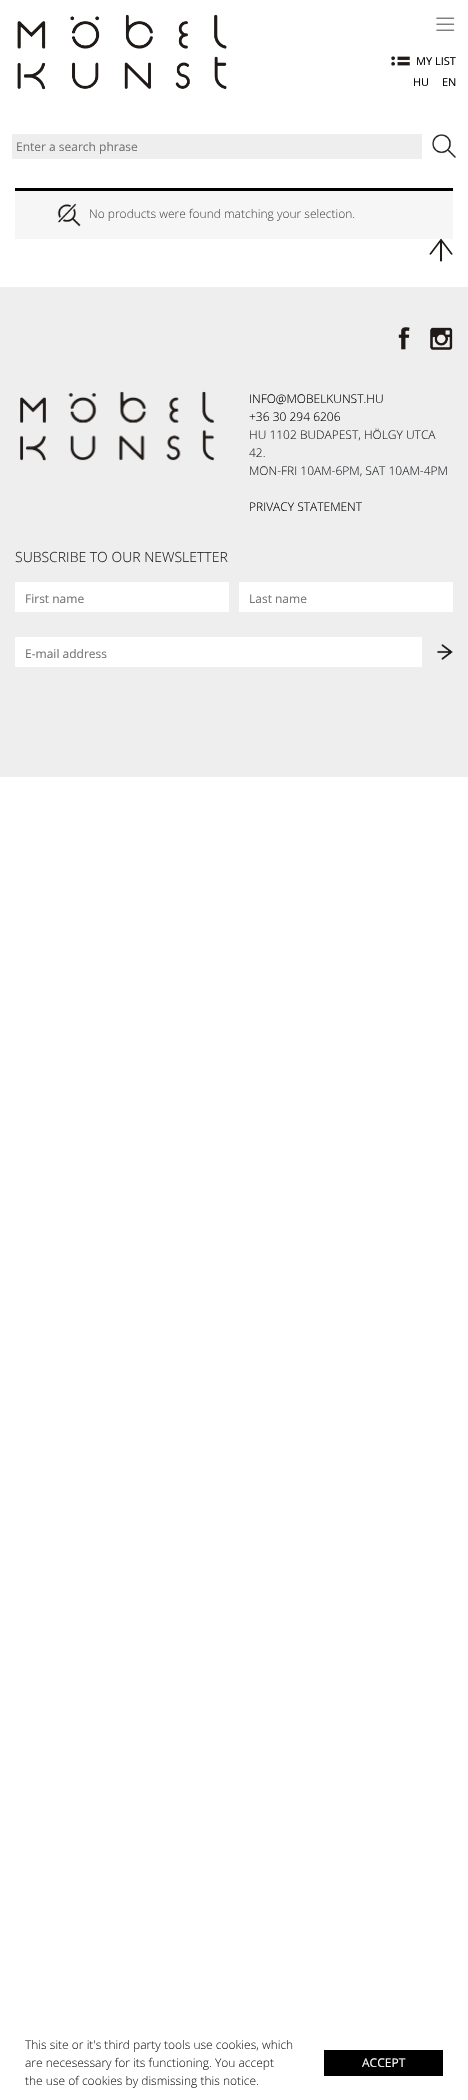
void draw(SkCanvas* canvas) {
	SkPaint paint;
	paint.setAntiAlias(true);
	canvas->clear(0xffffffff);
	canvas->drawImageRect(SkImages::DeferredFromEncodedData(SkData::MakeFromFileName("img1.png")), SkRect::MakeXYWH(17, 14, 210, 76), SkSamplingOptions());
	canvas->drawImageRect(SkImages::DeferredFromEncodedData(SkData::MakeFromFileName("img2.png")), SkRect::MakeXYWH(436, 17, 19, 14), SkSamplingOptions());
	canvas->drawImageRect(SkImages::DeferredFromEncodedData(SkData::MakeFromFileName("img3.png")), SkRect::MakeXYWH(391, 56, 19, 10), SkSamplingOptions());
	SkFont f1(fontMgr->matchFamilyStyle("Open Sans", SkFontStyle::Normal()), 11);
	f1.setSubpixel(true);
	paint.setColor(0xff000000);
	canvas->drawString("MY LIST", 416, 65, f1, paint);
	canvas->drawString("HU", 413, 86, f1, paint);
	canvas->drawString("EN", 442, 86, f1, paint);
	paint.setColor(0xffeeeeee);
	canvas->drawRect(SkRect::MakeXYWH(12, 134, 410, 25), paint);
	SkFont f2(fontMgr->matchFamilyStyle("Open Sans", SkFontStyle::Normal()), 12);
	f2.setSubpixel(true);
	paint.setColor(0xff757575);
	canvas->drawString("Enter a search phrase", 16, 151, f2, paint);
	canvas->drawImageRect(SkImages::DeferredFromEncodedData(SkData::MakeFromFileName("img4.png")), SkRect::MakeXYWH(432, 134, 24, 24), SkSamplingOptions());
	paint.setColor(0xfff7f6f7);
	canvas->drawRect(SkRect::MakeXYWH(15, 191, 438, 48), paint);
	paint.setColor(0xff000000);
	canvas->drawRect(SkRect::MakeXYWH(15, 188, 438, 3), paint);
	canvas->drawImageRect(SkImages::DeferredFromEncodedData(SkData::MakeFromFileName("img5.png")), SkRect::MakeXYWH(57, 203, 24, 24), SkSamplingOptions());
	SkFont f3(fontMgr->matchFamilyStyle("Open Sans", SkFontStyle(300, SkFontStyle::kNormal_Width, SkFontStyle::kUpright_Slant)), 12);
	f3.setSubpixel(true);
	paint.setColor(0xff515151);
	canvas->drawString("No products were found matching your selection.", 89, 218, f3, paint);
	canvas->drawImageRect(SkImages::DeferredFromEncodedData(SkData::MakeFromFileName("img6.png")), SkRect::MakeXYWH(429, 238, 24, 24), SkSamplingOptions());
	paint.setColor(0xffeeeeee);
	canvas->drawRect(SkRect::MakeXYWH(0, 287, 468, 490), paint);
	canvas->drawImageRect(SkImages::DeferredFromEncodedData(SkData::MakeFromFileName("img7.png")), SkRect::MakeXYWH(398, 327, 12, 23), SkSamplingOptions());
	canvas->drawImageRect(SkImages::DeferredFromEncodedData(SkData::MakeFromFileName("img8.png")), SkRect::MakeXYWH(430, 327, 23, 23), SkSamplingOptions());
	canvas->drawImageRect(SkImages::DeferredFromEncodedData(SkData::MakeFromFileName("img9.png")), SkRect::MakeXYWH(20, 391, 195, 70), SkSamplingOptions());
	paint.setColor(0xff000000);
	canvas->drawString("INFO@MOBELKUNST.HU", 249, 403, f3, paint);
	canvas->drawString("+36 30 294 6206", 249, 421, f3, paint);
	paint.setColor(0xff212529);
	canvas->drawString("HU 1102 BUDAPEST, HÖLGY UTCA", 249, 439, f3, paint);
	canvas->drawString("42.", 249, 457, f3, paint);
	canvas->drawString("MON-FRI 10AM-6PM, SAT 10AM-4PM", 249, 475, f3, paint);
	paint.setColor(0xff000000);
	canvas->drawString("PRIVACY STATEMENT", 249, 511, f3, paint);
	SkFont f4(fontMgr->matchFamilyStyle("Open Sans", SkFontStyle(300, SkFontStyle::kNormal_Width, SkFontStyle::kUpright_Slant)), 14);
	f4.setSubpixel(true);
	paint.setColor(0xff212529);
	canvas->drawString("SUBSCRIBE TO OUR NEWSLETTER", 15, 562, f4, paint);
	paint.setColor(0xffffffff);
	canvas->drawRect(SkRect::MakeXYWH(15, 582, 214, 30), paint);
	paint.setColor(0xff757575);
	canvas->drawString("First name", 25, 603, f2, paint);
	paint.setColor(0xffffffff);
	canvas->drawRect(SkRect::MakeXYWH(239, 582, 214, 30), paint);
	paint.setColor(0xff757575);
	canvas->drawString("Last name", 249, 603, f2, paint);
	paint.setColor(0xffffffff);
	canvas->drawRect(SkRect::MakeXYWH(15, 637, 407, 30), paint);
	paint.setColor(0xff757575);
	canvas->drawString("E-mail address", 25, 658, f2, paint);
	canvas->drawImageRect(SkImages::DeferredFromEncodedData(SkData::MakeFromFileName("img10.png")), SkRect::MakeXYWH(437, 644, 16, 16), SkSamplingOptions());
	paint.setColor(0xff212529);
	canvas->drawString("This site or it's third party tools use cookies, which", 25, 2049, f3, paint);
	canvas->drawString("are necesessary for its functioning. You accept", 25, 2067, f3, paint);
	canvas->drawString("the use of cookies by dismissing this notice.", 25, 2085, f3, paint);
	paint.setColor(0xff000000);
	canvas->drawRect(SkRect::MakeXYWH(324, 2050, 119, 26), paint);
	paint.setColor(0xffffffff);
	canvas->drawString("ACCEPT", 362, 2067, f2, paint);
}
